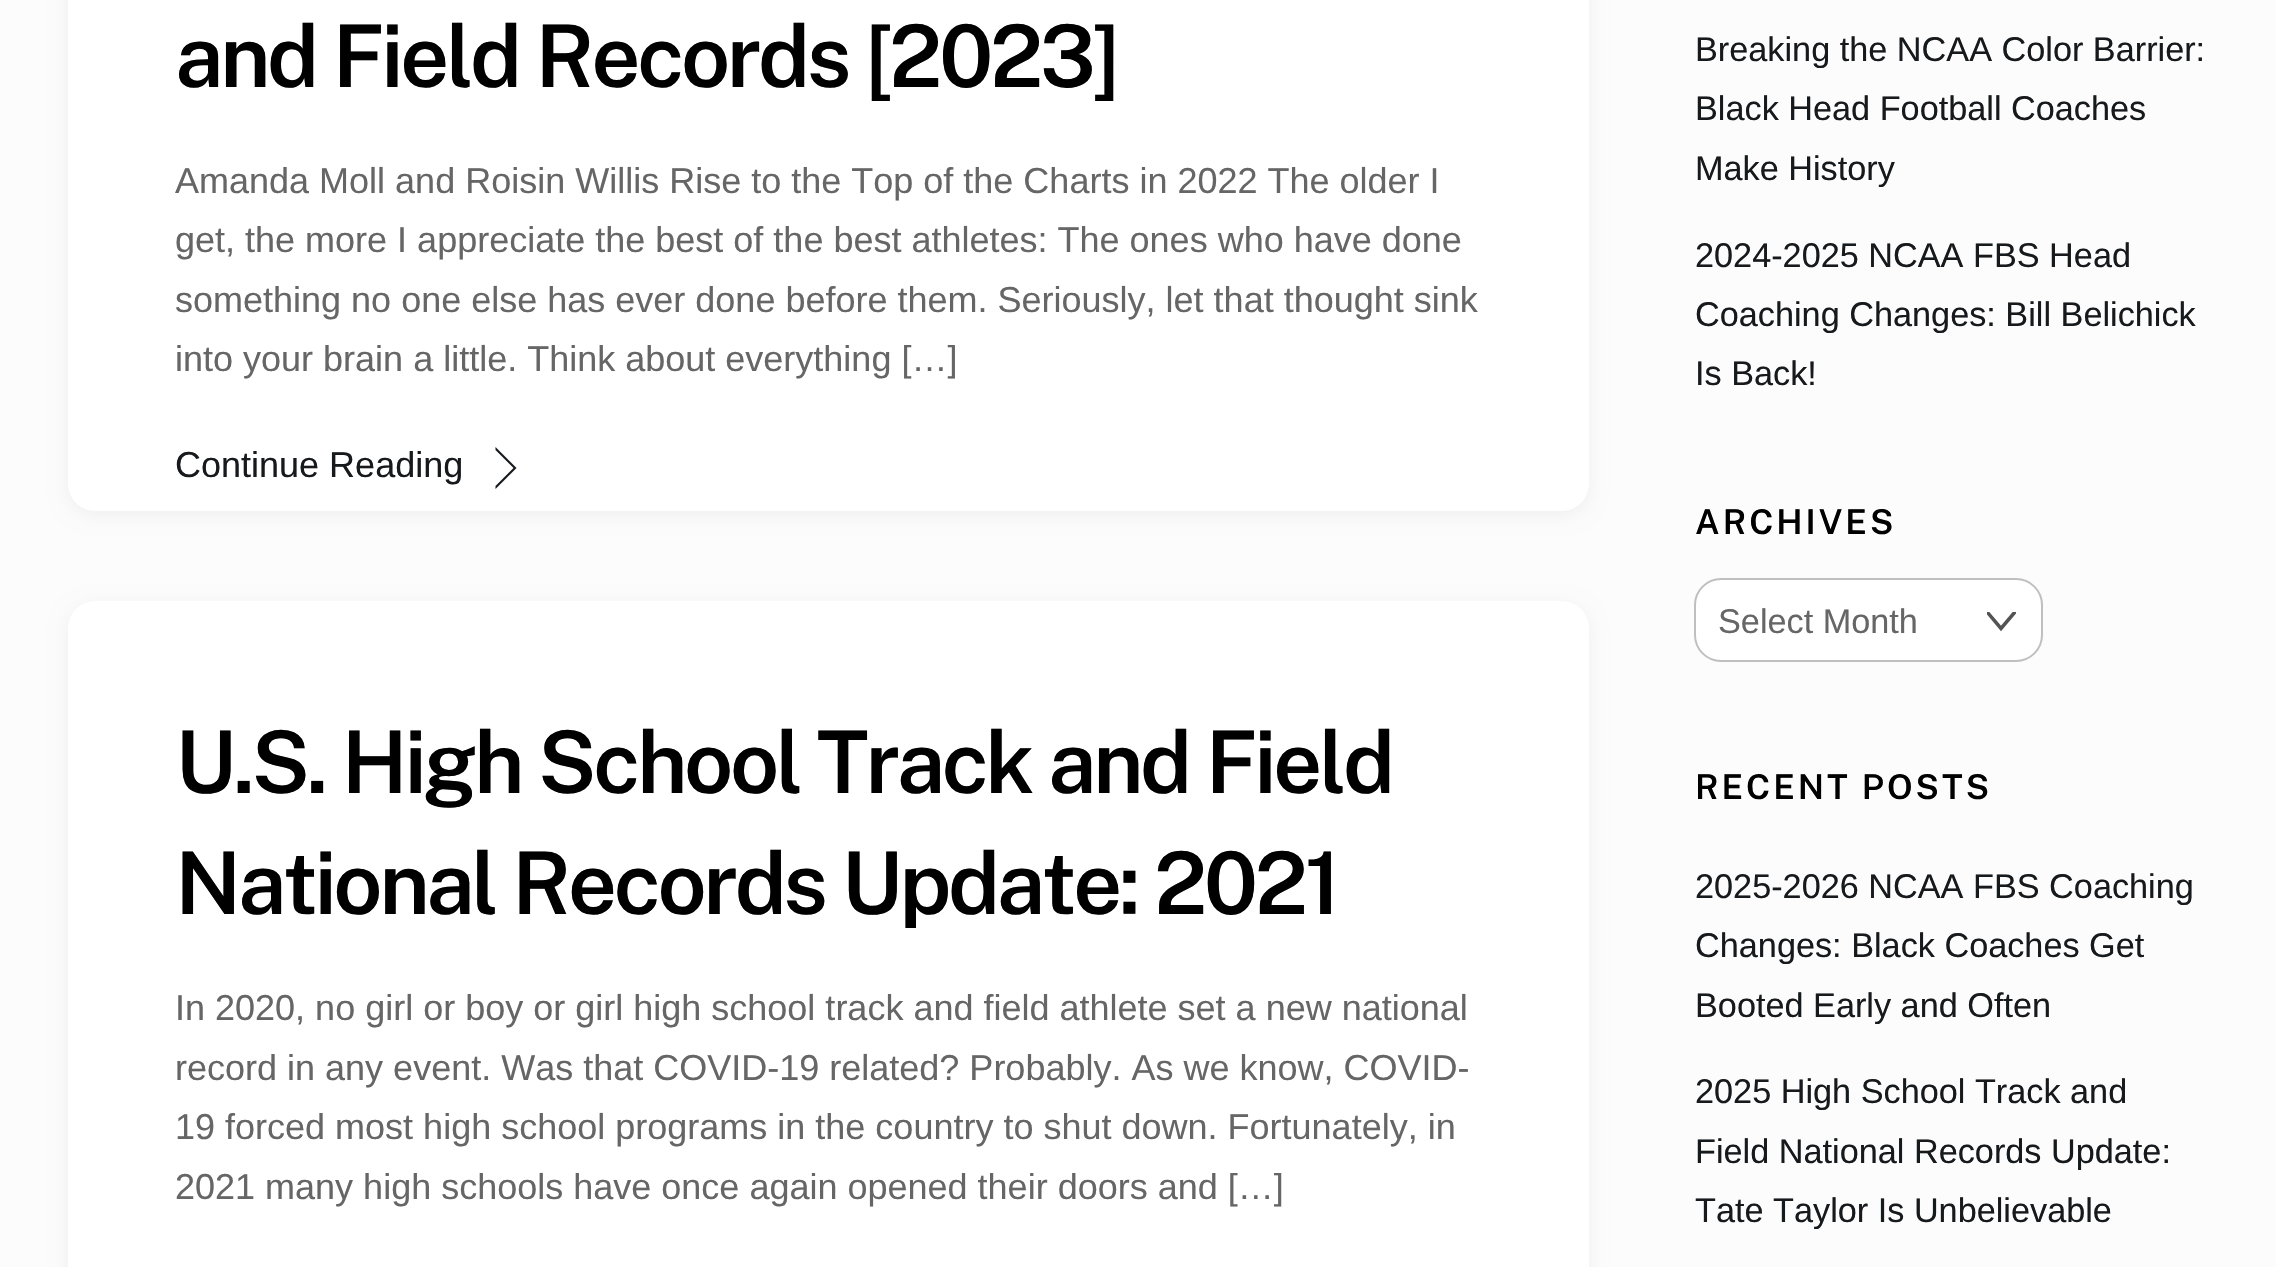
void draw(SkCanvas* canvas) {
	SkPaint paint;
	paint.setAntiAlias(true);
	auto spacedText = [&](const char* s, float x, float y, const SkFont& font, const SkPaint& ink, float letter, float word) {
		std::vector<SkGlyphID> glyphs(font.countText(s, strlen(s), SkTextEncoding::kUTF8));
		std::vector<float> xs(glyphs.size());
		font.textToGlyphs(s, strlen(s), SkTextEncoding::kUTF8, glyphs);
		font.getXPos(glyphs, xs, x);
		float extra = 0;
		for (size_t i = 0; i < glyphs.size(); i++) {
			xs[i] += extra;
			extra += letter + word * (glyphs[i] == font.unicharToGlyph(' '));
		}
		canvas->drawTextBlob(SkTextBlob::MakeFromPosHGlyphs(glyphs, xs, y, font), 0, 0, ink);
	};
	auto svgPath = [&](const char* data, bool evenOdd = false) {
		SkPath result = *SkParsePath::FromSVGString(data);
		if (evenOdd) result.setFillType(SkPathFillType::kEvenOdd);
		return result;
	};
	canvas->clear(0xfffcfcfc);
	paint.setColor(0x0d000000);
	paint.setMaskFilter(SkMaskFilter::MakeBlur(kNormal_SkBlurStyle, 9));
	canvas->drawRoundRect(SkRect::MakeXYWH(68, -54, 1521, 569), 27, 27, paint);
	paint.setMaskFilter(nullptr);
	paint.setColor(0xffffffff);
	canvas->drawRoundRect(SkRect::MakeXYWH(68, -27, 1521, 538), 27, 27, paint);
	SkFont f1(fontMgr->matchFamilyStyle("Public Sans", SkFontStyle(600, SkFontStyle::kNormal_Width, SkFontStyle::kUpright_Slant)), 86.4);
	f1.setSubpixel(true);
	paint.setColor(0xff000000);
	spacedText("and Field Records [2023]", 175, 87, f1, paint, -3.45, 0);
	SkFont f2(fontMgr->matchFamilyStyle("Liberation Sans", SkFontStyle::Normal()), 36);
	f2.setSubpixel(true);
	paint.setColor(0xff666666);
	canvas->drawString("Amanda Moll and Roisin Willis Rise to the Top of the Charts in 2022 The older I", 175, 193, f2, paint);
	canvas->drawString("get, the more I appreciate the best of the best athletes: The ones who have done", 175, 252, f2, paint);
	canvas->drawString("something no one else has ever done before them. Seriously, let that thought sink", 175, 312, f2, paint);
	canvas->drawString("into your brain a little. Think about everything […]", 175, 371, f2, paint);
	paint.setColor(0xff171a1c);
	canvas->drawString("Continue Reading", 175, 477, f2, paint);
	canvas->drawPath(svgPath("M495.5 447L516.5 468H513.5L495.5 450ZM516.5 468L495.5 489V486L513.5 468Z"), paint);
	paint.setColor(0x0d000000);
	paint.setMaskFilter(SkMaskFilter::MakeBlur(kNormal_SkBlurStyle, 9));
	canvas->drawRoundRect(SkRect::MakeXYWH(68, 605, 1521, 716), 27, 27, paint);
	paint.setMaskFilter(nullptr);
	paint.setColor(0xffffffff);
	canvas->drawRoundRect(SkRect::MakeXYWH(68, 601, 1521, 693), 27, 27, paint);
	paint.setColor(0xff000000);
	spacedText("U.S. High School Track and Field", 175, 793, f1, paint, -3.45, 0);
	spacedText("National Records Update: 2021", 175, 914, f1, paint, -3.45, 0);
	paint.setColor(0xff666666);
	canvas->drawString("In 2020, no girl or boy or girl high school track and field athlete set a new national", 175, 1020, f2, paint);
	canvas->drawString("record in any event. Was that COVID-19 related? Probably. As we know, COVID-", 175, 1080, f2, paint);
	canvas->drawString("19 forced most high school programs in the country to shut down. Fortunately, in", 175, 1139, f2, paint);
	canvas->drawString("2021 many high schools have once again opened their doors and […]", 175, 1199, f2, paint);
	SkFont f3(fontMgr->matchFamilyStyle("Liberation Sans", SkFontStyle::Normal()), 34.25);
	f3.setSubpixel(true);
	paint.setColor(0xff171a1c);
	canvas->drawString("Breaking the NCAA Color Barrier:", 1695, 61, f3, paint);
	canvas->drawString("Black Head Football Coaches", 1695, 120, f3, paint);
	canvas->drawString("Make History", 1695, 180, f3, paint);
	canvas->drawString("2024-2025 NCAA FBS Head", 1695, 267, f3, paint);
	canvas->drawString("Coaching Changes: Bill Belichick", 1695, 326, f3, paint);
	canvas->drawString("Is Back!", 1695, 385, f3, paint);
	SkFont f4(fontMgr->matchFamilyStyle("Public Sans", SkFontStyle(600, SkFontStyle::kNormal_Width, SkFontStyle::kUpright_Slant)), 34.25);
	f4.setSubpixel(true);
	paint.setColor(0xff000000);
	spacedText("ARCHIVES", 1695, 534, f4, paint, 3, 0);
	paint.setColor(0xffffffff);
	canvas->drawRoundRect(SkRect::MakeXYWH(1694, 578, 349, 84), 27, 27, paint);
	canvas->save();
	canvas->clipRect(SkRect::MakeXYWH(1987, 612, 29, 29));
	paint.setStroke(true);
	paint.setStrokeWidth(3.5);
	paint.setStrokeCap(SkPaint::kRound_Cap);
	paint.setColor(0xff535353);
	canvas->drawPath(svgPath("M1987.5 612.5L2001 628.5L2014.5 612.5"), paint);
	canvas->restore();
	paint.setStrokeWidth(2);
	paint.setStrokeCap(SkPaint::kButt_Cap);
	paint.setColor(0xffbfbfbf);
	canvas->drawRoundRect(SkRect::MakeXYWH(1695, 579, 347, 82), 26, 26, paint);
	paint.setStroke(false);
	paint.setColor(0xff666666);
	canvas->drawString("Select Month", 1718, 633, f3, paint);
	paint.setColor(0xff000000);
	spacedText("RECENT POSTS", 1695, 799, f4, paint, 3, 0);
	paint.setColor(0xff171a1c);
	canvas->drawString("2025-2026 NCAA FBS Coaching", 1695, 898, f3, paint);
	canvas->drawString("Changes: Black Coaches Get", 1695, 957, f3, paint);
	canvas->drawString("Booted Early and Often", 1695, 1017, f3, paint);
	canvas->drawString("2025 High School Track and", 1695, 1103, f3, paint);
	canvas->drawString("Field National Records Update:", 1695, 1163, f3, paint);
	canvas->drawString("Tate Taylor Is Unbelievable", 1695, 1222, f3, paint);
}
